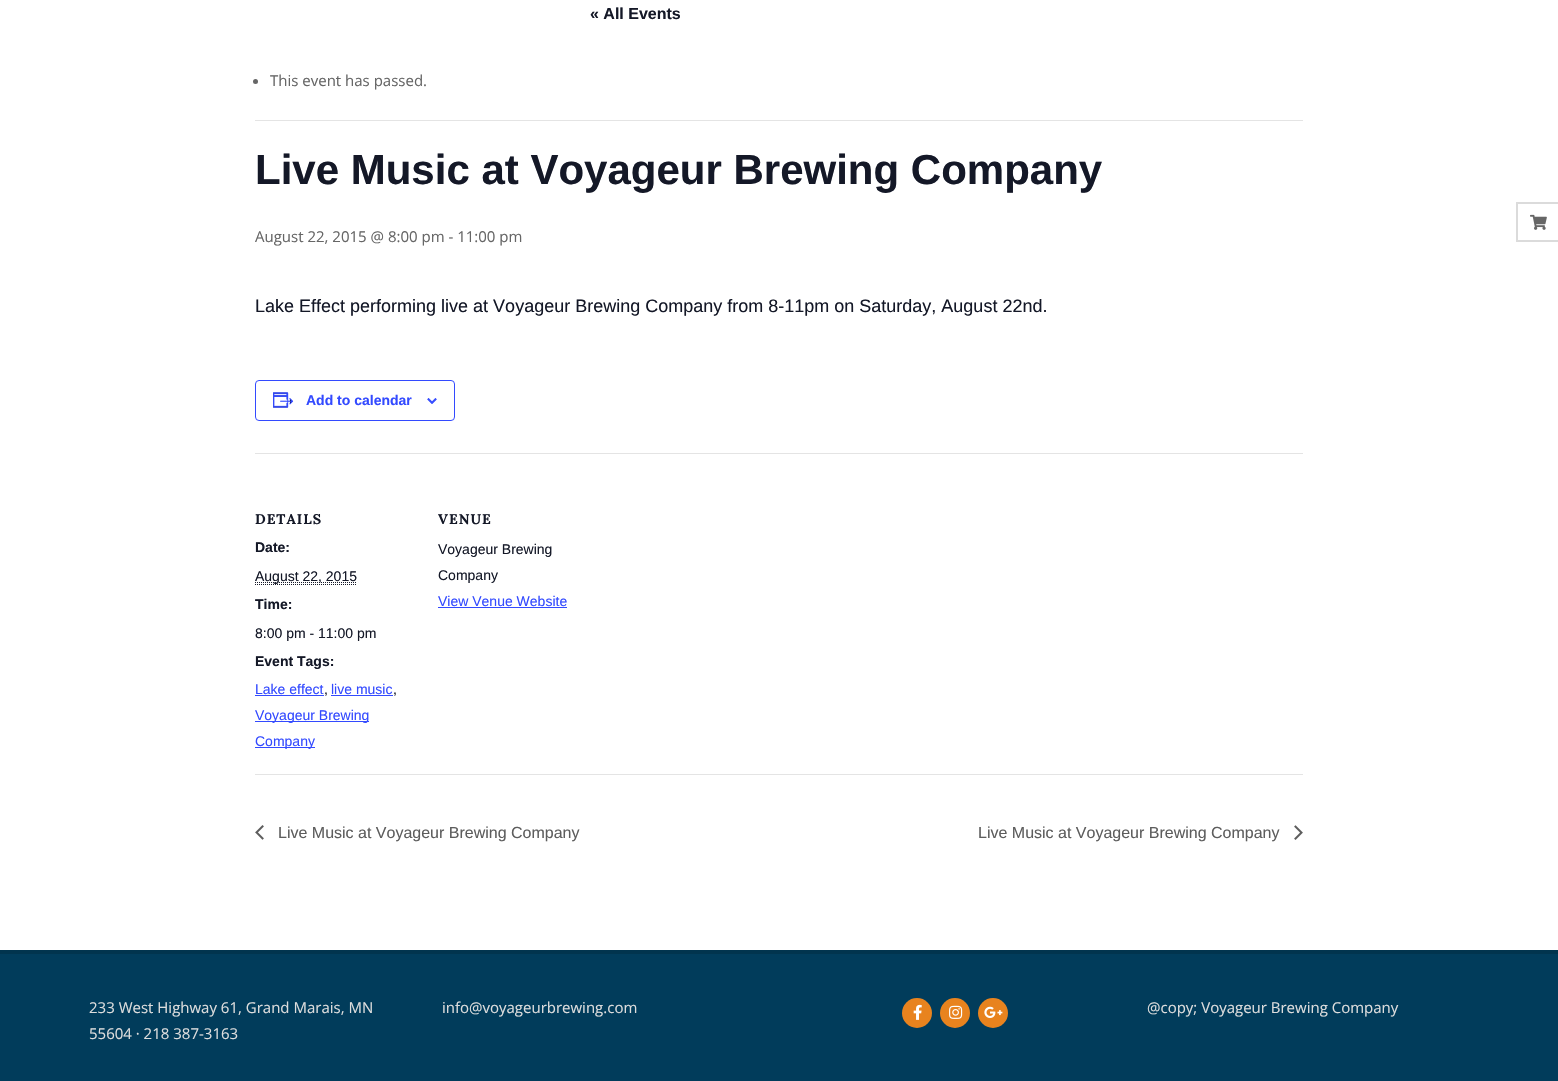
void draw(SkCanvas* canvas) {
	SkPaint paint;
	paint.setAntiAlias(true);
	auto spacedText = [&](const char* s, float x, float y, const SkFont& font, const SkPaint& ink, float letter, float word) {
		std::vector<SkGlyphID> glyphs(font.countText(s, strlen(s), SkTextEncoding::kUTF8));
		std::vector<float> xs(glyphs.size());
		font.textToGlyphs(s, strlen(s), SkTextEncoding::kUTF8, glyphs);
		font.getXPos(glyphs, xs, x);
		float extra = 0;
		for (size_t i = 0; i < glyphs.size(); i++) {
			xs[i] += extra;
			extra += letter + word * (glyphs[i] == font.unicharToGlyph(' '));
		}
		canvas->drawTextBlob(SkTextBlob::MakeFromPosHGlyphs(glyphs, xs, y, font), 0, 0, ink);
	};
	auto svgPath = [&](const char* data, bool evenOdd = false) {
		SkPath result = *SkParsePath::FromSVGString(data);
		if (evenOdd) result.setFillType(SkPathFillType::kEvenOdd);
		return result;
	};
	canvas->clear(0xff013c5b);
	paint.setColor(0xffffffff);
	canvas->drawRect(SkRect::MakeXYWH(0, 0, 1558, 950), paint);
	SkFont f1(fontMgr->matchFamilyStyle("Liberation Sans", SkFontStyle::Bold()), 16);
	f1.setSubpixel(true);
	paint.setColor(0xff141827);
	canvas->drawString("« All Events", 590, 19, f1, paint);
	paint.setColor(0xffe4e4e4);
	canvas->drawRect(SkRect::MakeXYWH(255, 120, 1048, 1), paint);
	paint.setColor(0xff666666);
	canvas->drawCircle(255.5, 81.5, 2.5, paint);
	SkFont f2(fontMgr->matchFamilyStyle("Open Sans", SkFontStyle::Normal()), 15);
	f2.setSubpixel(true);
	canvas->drawString("This event has passed.", 270, 86, f2, paint);
	SkFont f3(fontMgr->matchFamilyStyle("Liberation Sans", SkFontStyle::Bold()), 42);
	f3.setSubpixel(true);
	paint.setColor(0xff141827);
	canvas->drawString("Live Music at Voyageur Brewing Company", 255, 184, f3, paint);
	paint.setColor(0xff666666);
	canvas->drawString("August 22, 2015 @ 8:00 pm - 11:00 pm", 255, 242, f2, paint);
	SkFont f4(fontMgr->matchFamilyStyle("Liberation Sans", SkFontStyle::Normal()), 18);
	f4.setSubpixel(true);
	paint.setColor(0xff141827);
	canvas->drawString("Lake Effect performing live at Voyageur Brewing Company from 8-11pm on Saturday, August 22nd.", 255, 312, f4, paint);
	paint.setStroke(true);
	paint.setStrokeWidth(1);
	paint.setColor(0xff334aff);
	canvas->drawRoundRect(SkRect::MakeXYWH(255.5, 380.5, 199, 40), 3.5, 3.5, paint);
	canvas->drawImageRect(SkImages::DeferredFromEncodedData(SkData::MakeFromFileName("img1.png")), SkRect::MakeXYWH(273, 392, 21, 16), SkSamplingOptions());
	SkFont f5(fontMgr->matchFamilyStyle("Liberation Sans", SkFontStyle::Bold()), 14);
	f5.setSubpixel(true);
	paint.setStroke(false);
	canvas->drawString("Add to calendar", 306, 405, f5, paint);
	canvas->drawImageRect(SkImages::DeferredFromEncodedData(SkData::MakeFromFileName("img2.png")), SkRect::MakeXYWH(427, 398, 10, 6), SkSamplingOptions());
	paint.setColor(0xffe4e4e4);
	canvas->drawRect(SkRect::MakeXYWH(255, 453, 1048, 1), paint);
	SkFont f6(fontMgr->matchFamilyStyle("Lora", SkFontStyle::Bold()), 14);
	f6.setSubpixel(true);
	paint.setColor(0xff141827);
	spacedText("DETAILS", 255, 524, f6, paint, 1, 0);
	canvas->drawString("Date:", 255, 552, f5, paint);
	paint.setStroke(true);
	paint.setPathEffect(SkDashPathEffect::Make({{1, 1}}, 0));
	canvas->drawPath(svgPath("M255 582.5H357"), paint);
	paint.setPathEffect(nullptr);
	SkFont f7(fontMgr->matchFamilyStyle("Liberation Sans", SkFontStyle::Normal()), 14);
	f7.setSubpixel(true);
	paint.setStroke(false);
	canvas->drawString("August 22, 2015", 255, 581, f7, paint);
	paint.setStroke(true);
	paint.setPathEffect(SkDashPathEffect::Make({{1, 1}}, 0));
	canvas->drawPath(svgPath("M255 584.5H357"), paint);
	paint.setPathEffect(nullptr);
	paint.setStroke(false);
	canvas->drawString("Time:", 255, 609, f5, paint);
	canvas->drawString("8:00 pm - 11:00 pm", 255, 638, f7, paint);
	canvas->drawString("Event Tags:", 255, 666, f5, paint);
	paint.setColor(0xff334aff);
	canvas->drawString("Lake effect", 255, 694, f7, paint);
	canvas->drawRect(SkRect::MakeXYWH(255, 695, 69, 1), paint);
	paint.setColor(0xff141827);
	canvas->drawString(",", 324, 694, f7, paint);
	paint.setColor(0xff334aff);
	canvas->drawString("live music", 331, 694, f7, paint);
	canvas->drawRect(SkRect::MakeXYWH(331, 695, 62, 1), paint);
	paint.setColor(0xff141827);
	canvas->drawString(",", 393, 694, f7, paint);
	paint.setColor(0xff334aff);
	canvas->drawRect(SkRect::MakeXYWH(255, 721, 114, 1), paint);
	canvas->drawString("Voyageur Brewing", 255, 720, f7, paint);
	canvas->drawRect(SkRect::MakeXYWH(255, 747, 60, 1), paint);
	canvas->drawString("Company", 255, 746, f7, paint);
	paint.setColor(0xff141827);
	spacedText("VENUE", 438, 524, f6, paint, 1, 0);
	canvas->drawString("Voyageur Brewing", 438, 554, f7, paint);
	canvas->drawString("Company", 438, 580, f7, paint);
	paint.setColor(0xff334aff);
	canvas->drawString("View Venue Website", 438, 606, f7, paint);
	canvas->drawRect(SkRect::MakeXYWH(438, 607, 129, 1), paint);
	paint.setColor(0xffe4e4e4);
	canvas->drawRect(SkRect::MakeXYWH(255, 774, 1048, 1), paint);
	canvas->drawImageRect(SkImages::DeferredFromEncodedData(SkData::MakeFromFileName("img3.png")), SkRect::MakeXYWH(255, 825, 9, 15), SkSamplingOptions());
	SkFont f8(fontMgr->matchFamilyStyle("Liberation Sans", SkFontStyle::Normal()), 16);
	f8.setSubpixel(true);
	paint.setColor(0xff5d5d5d);
	canvas->drawString("Live Music at Voyageur Brewing Company", 278, 838, f8, paint);
	canvas->drawString("Live Music at Voyageur Brewing Company", 978, 838, f8, paint);
	canvas->drawImageRect(SkImages::DeferredFromEncodedData(SkData::MakeFromFileName("img4.png")), SkRect::MakeXYWH(1294, 825, 9, 15), SkSamplingOptions());
	paint.setColor(0xff01344e);
	canvas->drawRect(SkRect::MakeXYWH(0, 950, 1558, 4), paint);
	paint.setColor(0xffdddddd);
	canvas->drawString("233 West Highway 61, Grand Marais, MN", 89, 1013, f2, paint);
	canvas->drawString("55604 · 218 387-3163", 89, 1039, f2, paint);
	canvas->drawString("info@voyageurbrewing.com", 442, 1013, f2, paint);
	paint.setColor(0xffe8831e);
	canvas->drawCircle(917, 1013, 15, paint);
	canvas->drawImageRect(SkImages::DeferredFromEncodedData(SkData::MakeFromFileName("img5.png")), SkRect::MakeXYWH(913, 1004, 9, 16), SkSamplingOptions());
	canvas->drawCircle(955, 1013, 15, paint);
	canvas->drawImageRect(SkImages::DeferredFromEncodedData(SkData::MakeFromFileName("img6.png")), SkRect::MakeXYWH(949, 1005, 14, 14), SkSamplingOptions());
	canvas->drawCircle(993, 1013, 15, paint);
	canvas->drawImageRect(SkImages::DeferredFromEncodedData(SkData::MakeFromFileName("img7.png")), SkRect::MakeXYWH(984, 1006, 19, 12), SkSamplingOptions());
	paint.setColor(0xffdddddd);
	canvas->drawString("@copy; Voyageur Brewing Company", 1147, 1013, f2, paint);
	paint.setColor(0xffdbdbdb);
	canvas->drawPath(svgPath("M1516 202H1558V204H1518ZM1558 242H1516L1518 240H1558Z"), paint);
	paint.setColor(0x24000000);
	canvas->drawPath(svgPath("M1516 242V202L1518 204V240Z"), paint);
	canvas->drawImageRect(SkImages::DeferredFromEncodedData(SkData::MakeFromFileName("img8.png")), SkRect::MakeXYWH(1530, 214, 17, 16), SkSamplingOptions());
}
